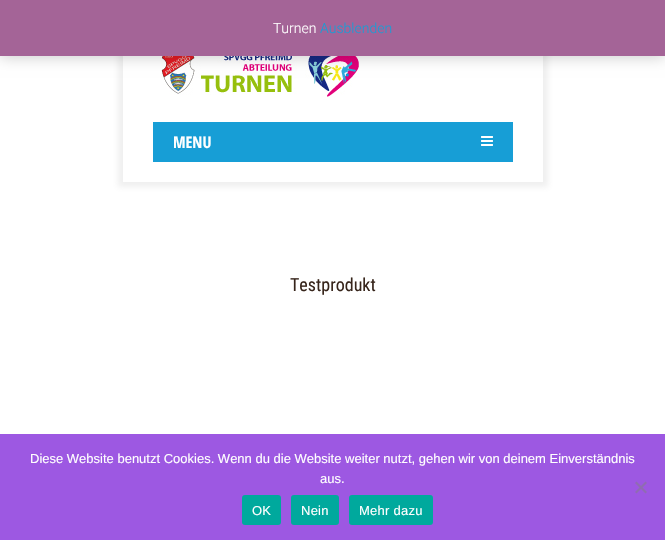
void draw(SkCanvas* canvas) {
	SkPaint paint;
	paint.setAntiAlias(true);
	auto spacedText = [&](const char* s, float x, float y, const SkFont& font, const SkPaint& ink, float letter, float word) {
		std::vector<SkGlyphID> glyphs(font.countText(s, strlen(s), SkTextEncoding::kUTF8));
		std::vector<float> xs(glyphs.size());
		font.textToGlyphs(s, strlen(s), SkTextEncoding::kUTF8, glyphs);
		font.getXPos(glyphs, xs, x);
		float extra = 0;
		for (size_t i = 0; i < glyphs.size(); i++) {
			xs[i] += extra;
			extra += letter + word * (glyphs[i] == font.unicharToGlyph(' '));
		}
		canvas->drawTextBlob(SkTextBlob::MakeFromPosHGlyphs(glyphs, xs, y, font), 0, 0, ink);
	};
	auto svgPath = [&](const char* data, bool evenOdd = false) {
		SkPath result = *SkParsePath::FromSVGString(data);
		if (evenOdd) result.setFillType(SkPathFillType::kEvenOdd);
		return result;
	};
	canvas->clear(0xffffffff);
	paint.setColor(0x1a5f5f5f);
	paint.setMaskFilter(SkMaskFilter::MakeBlur(kNormal_SkBlurStyle, 3));
	canvas->drawRect(SkRect::MakeXYWH(118, 34, 430, 153), paint);
	paint.setMaskFilter(nullptr);
	paint.setColor(0xffffffff);
	canvas->drawRect(SkRect::MakeXYWH(123, 56, 420, 126), paint);
	canvas->drawImageRect(SkImages::DeferredFromEncodedData(SkData::MakeFromFileName("img1.png")), SkRect::MakeXYWH(161, 56, 198, 44), SkSamplingOptions());
	paint.setColor(0x33000000);
	paint.setMaskFilter(SkMaskFilter::MakeBlur(kNormal_SkBlurStyle, 7));
	canvas->drawRect(SkRect::MakeXYWH(0, 1, 665, 56), paint);
	paint.setMaskFilter(nullptr);
	paint.setColor(0xffa46497);
	canvas->drawRect(SkRect::MakeXYWH(0, 0, 665, 56), paint);
	SkFont f1(fontMgr->matchFamilyStyle("Roboto", SkFontStyle(300, SkFontStyle::kNormal_Width, SkFontStyle::kUpright_Slant)), 14);
	f1.setSubpixel(true);
	paint.setColor(0xffffffff);
	canvas->drawString("Turnen", 273, 33, f1, paint);
	paint.setColor(0xff179ed6);
	canvas->drawString("Ausblenden", 320, 33, f1, paint);
	canvas->drawRect(SkRect::MakeXYWH(153, 122, 360, 40), paint);
	SkFont f2(fontMgr->matchFamilyStyle("Open Sans Condensed", SkFontStyle::Bold()), 16);
	f2.setSubpixel(true);
	paint.setColor(0xffffffff);
	canvas->drawString("MENU", 173, 148, f2, paint);
	canvas->drawImageRect(SkImages::DeferredFromEncodedData(SkData::MakeFromFileName("img2.png")), SkRect::MakeXYWH(481, 136, 12, 10), SkSamplingOptions());
	SkFont f3(fontMgr->matchFamilyStyle("Roboto Condensed", SkFontStyle::Normal()), 18);
	f3.setSubpixel(true);
	paint.setColor(0xff37251b);
	canvas->drawString("Testprodukt", 290, 291, f3, paint);
	paint.setColor(0xff9d58e2);
	canvas->drawRect(SkRect::MakeXYWH(0, 434, 665, 106), paint);
	SkFont f4(fontMgr->matchFamilyStyle("Liberation Sans", SkFontStyle::Normal()), 13);
	f4.setSubpixel(true);
	paint.setColor(0xffffffff);
	canvas->drawString("Diese Website benutzt Cookies. Wenn du die Website weiter nutzt, gehen wir von deinem Einverständnis", 30, 463, f4, paint);
	canvas->drawString("aus.", 320, 483, f4, paint);
	paint.setColor(0xff8f6cb1);
	canvas->drawPath(svgPath("M645.5 481.5L647 483L636.5 493.5L635 492Z"), paint);
	canvas->drawPath(svgPath("M635 483L636.5 481.5L647 492L645.5 493.5Z"), paint);
	paint.setColor(0xff00a99d);
	canvas->drawRoundRect(SkRect::MakeXYWH(242, 495, 39, 30), 3, 3, paint);
	paint.setColor(0xffffffff);
	spacedText("OK", 252, 515, f4, paint, 0.25, 0);
	paint.setColor(0xff00a99d);
	canvas->drawRoundRect(SkRect::MakeXYWH(291, 495, 48, 30), 3, 3, paint);
	paint.setColor(0xffffffff);
	spacedText("Nein", 301, 515, f4, paint, 0.25, 0);
	paint.setColor(0xff00a99d);
	canvas->drawRoundRect(SkRect::MakeXYWH(349, 495, 84, 30), 3, 3, paint);
	paint.setColor(0xffffffff);
	spacedText("Mehr dazu", 359, 515, f4, paint, 0.25, 0);
}
